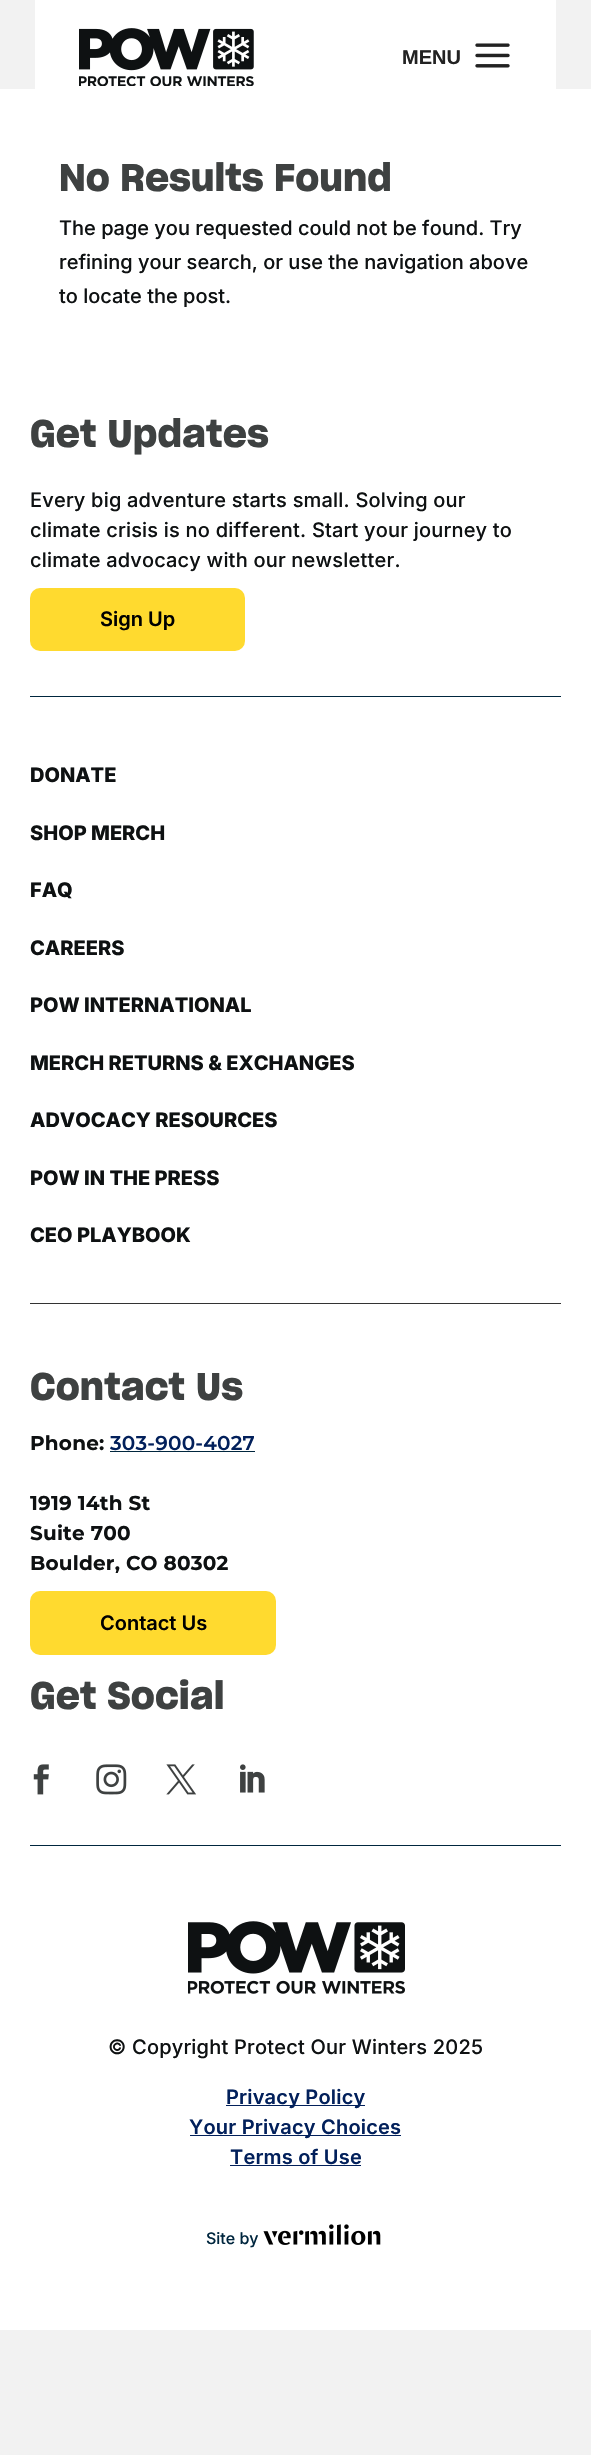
void draw(SkCanvas* canvas) {
	SkPaint paint;
	paint.setAntiAlias(true);
	auto spacedText = [&](const char* s, float x, float y, const SkFont& font, const SkPaint& ink, float letter, float word) {
		std::vector<SkGlyphID> glyphs(font.countText(s, strlen(s), SkTextEncoding::kUTF8));
		std::vector<float> xs(glyphs.size());
		font.textToGlyphs(s, strlen(s), SkTextEncoding::kUTF8, glyphs);
		font.getXPos(glyphs, xs, x);
		float extra = 0;
		for (size_t i = 0; i < glyphs.size(); i++) {
			xs[i] += extra;
			extra += letter + word * (glyphs[i] == font.unicharToGlyph(' '));
		}
		canvas->drawTextBlob(SkTextBlob::MakeFromPosHGlyphs(glyphs, xs, y, font), 0, 0, ink);
	};
	canvas->clear(0xfff2f2f2);
	paint.setColor(0xffffffff);
	canvas->drawRect(SkRect::MakeXYWH(35, 0, 521, 89), paint);
	canvas->drawImageRect(SkImages::DeferredFromEncodedData(SkData::MakeFromFileName("img1.png")), SkRect::MakeXYWH(79, 28, 175, 58), SkSamplingOptions());
	SkFont f1(fontMgr->matchFamilyStyle("Liberation Sans", SkFontStyle::Bold()), 20);
	f1.setSubpixel(true);
	paint.setColor(0xff222222);
	canvas->drawString("MENU", 402, 64, f1, paint);
	canvas->drawImageRect(SkImages::DeferredFromEncodedData(SkData::MakeFromFileName("img2.png")), SkRect::MakeXYWH(475, 43, 35, 25), SkSamplingOptions());
	paint.setColor(0xffffffff);
	canvas->drawRect(SkRect::MakeXYWH(0, 89, 591, 2241), paint);
	SkFont f2(fontMgr->matchFamilyStyle("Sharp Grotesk", SkFontStyle(600, SkFontStyle::kNormal_Width, SkFontStyle::kUpright_Slant)), 37.5);
	f2.setSubpixel(true);
	paint.setColor(0xff3e4141);
	canvas->drawString("No Results Found", 59, 191, f2, paint);
	SkFont f3(fontMgr->matchFamilyStyle("Inter", SkFontStyle(500, SkFontStyle::kNormal_Width, SkFontStyle::kUpright_Slant)), 20);
	f3.setSubpixel(true);
	paint.setColor(0xff0e1112);
	canvas->drawString("The page you requested could not be found. Try", 59, 235, f3, paint);
	canvas->drawString("refining your search, or use the navigation above", 59, 269, f3, paint);
	canvas->drawString("to locate the post.", 59, 303, f3, paint);
	paint.setColor(0xff00263e);
	canvas->drawRect(SkRect::MakeXYWH(30, 696, 531, 1), paint);
	paint.setColor(0xff3e4141);
	spacedText("Get Updates", 30, 447, f2, paint, 0.2, 0);
	paint.setColor(0xff0e1112);
	spacedText("Every big adventure starts small. Solving our", 30, 507, f3, paint, 0.2, 0);
	spacedText("climate crisis is no different. Start your journey to", 30, 537, f3, paint, 0.2, 0);
	spacedText("climate advocacy with our newsletter.", 30, 567, f3, paint, 0.2, 0);
	paint.setColor(0xffffda2f);
	canvas->drawRoundRect(SkRect::MakeXYWH(30, 588, 215, 63), 10, 10, paint);
	SkFont f4(fontMgr->matchFamilyStyle("Inter", SkFontStyle(600, SkFontStyle::kNormal_Width, SkFontStyle::kUpright_Slant)), 20);
	f4.setSubpixel(true);
	paint.setColor(0xff000000);
	canvas->drawString("Sign Up", 100, 626, f4, paint);
	paint.setColor(0xff333333);
	canvas->drawRect(SkRect::MakeXYWH(30, 1303, 531, 1), paint);
	SkFont f5(fontMgr->matchFamilyStyle("Inter", SkFontStyle(800, SkFontStyle::kNormal_Width, SkFontStyle::kUpright_Slant)), 20);
	f5.setSubpixel(true);
	paint.setColor(0xff0e1112);
	canvas->drawString("DONATE", 30, 782, f5, paint);
	canvas->drawString("SHOP MERCH", 30, 840, f5, paint);
	canvas->drawString("FAQ", 30, 897, f5, paint);
	canvas->drawString("CAREERS", 30, 955, f5, paint);
	canvas->drawString("POW INTERNATIONAL", 30, 1012, f5, paint);
	canvas->drawString("MERCH RETURNS & EXCHANGES", 30, 1070, f5, paint);
	canvas->drawString("ADVOCACY RESOURCES", 30, 1127, f5, paint);
	canvas->drawString("POW IN THE PRESS", 30, 1185, f5, paint);
	canvas->drawString("CEO PLAYBOOK", 30, 1242, f5, paint);
	paint.setColor(0xff00263e);
	canvas->drawRect(SkRect::MakeXYWH(30, 1845, 531, 1), paint);
	paint.setColor(0xff3e4141);
	spacedText("Contact Us", 30, 1400, f2, paint, 0.2, 0);
	SkFont f6(fontMgr->matchFamilyStyle("Montserrat", SkFontStyle(100, SkFontStyle::kNormal_Width, SkFontStyle::kUpright_Slant)), 20);
	f6.setSubpixel(true);
	paint.setColor(0xff0e1112);
	spacedText("Phone:", 30, 1450, f6, paint, 0.2, 0);
	SkFont f7(fontMgr->matchFamilyStyle("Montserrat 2", SkFontStyle(100, SkFontStyle::kNormal_Width, SkFontStyle::kUpright_Slant)), 20);
	f7.setSubpixel(true);
	paint.setColor(0xff02205b);
	spacedText("303-900-4027", 110, 1450, f7, paint, 0.2, 0);
	paint.setColor(0xff00263e);
	canvas->drawRect(SkRect::MakeXYWH(110, 1451, 145, 1), paint);
	paint.setColor(0xff0e1112);
	spacedText("1919 14th St", 30, 1510, f6, paint, 0.2, 0);
	spacedText("Suite 700", 30, 1540, f6, paint, 0.2, 0);
	spacedText("Boulder, CO 80302", 30, 1570, f6, paint, 0.2, 0);
	paint.setColor(0xffffda2f);
	canvas->drawRoundRect(SkRect::MakeXYWH(30, 1591, 246, 64), 10, 10, paint);
	paint.setColor(0xff000000);
	canvas->drawString("Contact Us", 100, 1630, f4, paint);
	paint.setColor(0xff3e4141);
	spacedText("Get Social", 30, 1709, f2, paint, 0.2, 0);
	canvas->drawImageRect(SkImages::DeferredFromEncodedData(SkData::MakeFromFileName("img3.png")), SkRect::MakeXYWH(33, 1764, 16, 31), SkSamplingOptions());
	canvas->drawImageRect(SkImages::DeferredFromEncodedData(SkData::MakeFromFileName("img4.png")), SkRect::MakeXYWH(96, 1764, 31, 31), SkSamplingOptions());
	canvas->drawImageRect(SkImages::DeferredFromEncodedData(SkData::MakeFromFileName("img5.png")), SkRect::MakeXYWH(166, 1764, 31, 31), SkSamplingOptions());
	canvas->drawImageRect(SkImages::DeferredFromEncodedData(SkData::MakeFromFileName("img6.png")), SkRect::MakeXYWH(240, 1764, 25, 29), SkSamplingOptions());
	canvas->drawImageRect(SkImages::DeferredFromEncodedData(SkData::MakeFromFileName("img7.png")), SkRect::MakeXYWH(188, 1921, 217, 73), SkSamplingOptions());
	paint.setColor(0xff0e1112);
	spacedText("© Copyright Protect Our Winters 2025", 108, 2054, f3, paint, 0.2, 0);
	paint.setColor(0xff02205b);
	canvas->drawRect(SkRect::MakeXYWH(226, 2105, 139, 1), paint);
	spacedText("Privacy Policy", 226, 2104, f4, paint, 0.2, 0);
	canvas->drawRect(SkRect::MakeXYWH(190, 2135, 211, 1), paint);
	spacedText("Your Privacy Choices", 189, 2134, f4, paint, 0.2, 0);
	spacedText("Terms of Use", 230, 2164, f4, paint, 0.2, 0);
	canvas->drawRect(SkRect::MakeXYWH(230, 2165, 131, 1), paint);
	SkFont f8(fontMgr->matchFamilyStyle("Inter", SkFontStyle(500, SkFontStyle::kNormal_Width, SkFontStyle::kUpright_Slant)), 16);
	f8.setSubpixel(true);
	paint.setColor(0xff00263e);
	canvas->drawString("Site by", 206, 2244, f8, paint);
	canvas->drawImageRect(SkImages::DeferredFromEncodedData(SkData::MakeFromFileName("img8.png")), SkRect::MakeXYWH(263, 2224, 118, 21), SkSamplingOptions());
}
